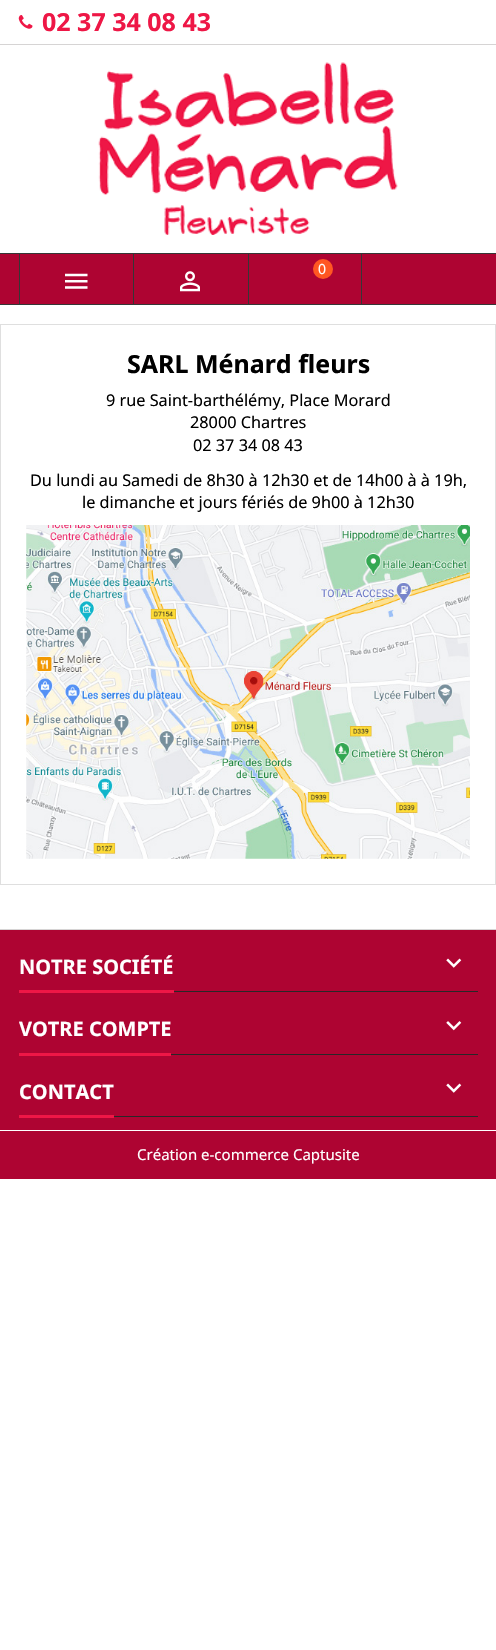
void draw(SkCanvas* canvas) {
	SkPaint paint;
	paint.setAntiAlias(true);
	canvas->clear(0xffffffff);
	paint.setColor(0xffd6d4d4);
	canvas->drawRect(SkRect::MakeXYWH(0, 44, 496, 1), paint);
	canvas->drawImageRect(SkImages::DeferredFromEncodedData(SkData::MakeFromFileName("img1.png")), SkRect::MakeXYWH(18, 15, 15, 14), SkSamplingOptions());
	SkFont f1(fontMgr->matchFamilyStyle("Noto Sans", SkFontStyle::Bold()), 25);
	f1.setSubpixel(true);
	paint.setColor(0xffee1746);
	canvas->drawString("02 37 34 08 43", 42, 31, f1, paint);
	canvas->drawImageRect(SkImages::DeferredFromEncodedData(SkData::MakeFromFileName("img2.png")), SkRect::MakeXYWH(98, 62, 300, 173), SkSamplingOptions());
	paint.setColor(0xffae0432);
	canvas->drawRect(SkRect::MakeXYWH(0, 254, 496, 50), paint);
	paint.setColor(0xff363636);
	canvas->drawRect(SkRect::MakeXYWH(0, 253, 496, 1), paint);
	canvas->drawRect(SkRect::MakeXYWH(0, 304, 496, 1), paint);
	canvas->drawRect(SkRect::MakeXYWH(133, 254, 1, 50), paint);
	canvas->drawRect(SkRect::MakeXYWH(19, 254, 1, 50), paint);
	canvas->drawImageRect(SkImages::DeferredFromEncodedData(SkData::MakeFromFileName("img3.png")), SkRect::MakeXYWH(65, 273, 23, 16), SkSamplingOptions());
	canvas->drawRect(SkRect::MakeXYWH(248, 254, 1, 50), paint);
	canvas->drawImageRect(SkImages::DeferredFromEncodedData(SkData::MakeFromFileName("img4.png")), SkRect::MakeXYWH(180, 271, 20, 21), SkSamplingOptions());
	canvas->drawRect(SkRect::MakeXYWH(361, 254, 1, 50), paint);
	paint.setColor(0xffff5722);
	canvas->drawCircle(323, 269, 10, paint);
	SkFont f2(fontMgr->matchFamilyStyle("Noto Sans", SkFontStyle::Normal()), 14);
	f2.setSubpixel(true);
	paint.setColor(0xffffffff);
	canvas->drawString("0", 318, 274, f2, paint);
	paint.setStroke(true);
	paint.setStrokeWidth(1);
	paint.setColor(0xffdfdfdf);
	canvas->drawRect(SkRect::MakeXYWH(0.5, 324.5, 495, 560), paint);
	paint.setStroke(false);
	paint.setColor(0xff000000);
	canvas->drawString("SARL Ménard fleurs", 127, 373, f1, paint);
	SkFont f3(fontMgr->matchFamilyStyle("Noto Sans", SkFontStyle::Normal()), 16.25);
	f3.setSubpixel(true);
	canvas->drawString("9 rue Saint-barthélémy, Place Morard", 106, 406, f3, paint);
	canvas->drawString("28000 Chartres", 190, 428, f3, paint);
	canvas->drawString("02 37 34 08 43", 193, 451, f3, paint);
	canvas->drawString("Du lundi au Samedi de 8h30 à 12h30 et de 14h00 à à 19h,", 30, 486, f3, paint);
	canvas->drawString("le dimanche et jours fériés de 9h00 à 12h30", 82, 508, f3, paint);
	canvas->drawImageRect(SkImages::DeferredFromEncodedData(SkData::MakeFromFileName("img5.png")), SkRect::MakeXYWH(26, 525, 444, 334), SkSamplingOptions());
	paint.setColor(0xffae0432);
	canvas->drawRect(SkRect::MakeXYWH(0, 930, 496, 200), paint);
	paint.setColor(0xffd6d4d4);
	canvas->drawRect(SkRect::MakeXYWH(0, 929, 496, 1), paint);
	paint.setColor(0xff282828);
	canvas->drawRect(SkRect::MakeXYWH(174, 991, 304, 1), paint);
	paint.setColor(0xffee1746);
	canvas->drawRect(SkRect::MakeXYWH(19, 990, 155, 3), paint);
	SkFont f4(fontMgr->matchFamilyStyle("Noto Sans", SkFontStyle::Bold()), 20);
	f4.setSubpixel(true);
	paint.setColor(0xffffffff);
	canvas->drawString("NOTRE SOCIÉTÉ", 19, 974, f4, paint);
	canvas->drawImageRect(SkImages::DeferredFromEncodedData(SkData::MakeFromFileName("img6.png")), SkRect::MakeXYWH(446, 958, 16, 10), SkSamplingOptions());
	paint.setColor(0xff282828);
	canvas->drawRect(SkRect::MakeXYWH(171, 1054, 307, 1), paint);
	paint.setColor(0xffee1746);
	canvas->drawRect(SkRect::MakeXYWH(19, 1053, 152, 3), paint);
	paint.setColor(0xffffffff);
	canvas->drawString("VOTRE COMPTE", 19, 1036, f4, paint);
	canvas->drawImageRect(SkImages::DeferredFromEncodedData(SkData::MakeFromFileName("img7.png")), SkRect::MakeXYWH(446, 1021, 16, 10), SkSamplingOptions());
	paint.setColor(0xff282828);
	canvas->drawRect(SkRect::MakeXYWH(114, 1116, 364, 1), paint);
	paint.setColor(0xffee1746);
	canvas->drawRect(SkRect::MakeXYWH(19, 1115, 95, 3), paint);
	paint.setColor(0xffffffff);
	canvas->drawString("CONTACT", 19, 1099, f4, paint);
	canvas->drawImageRect(SkImages::DeferredFromEncodedData(SkData::MakeFromFileName("img6.png")), SkRect::MakeXYWH(446, 1083, 16, 10), SkSamplingOptions());
	paint.setColor(0xffae0432);
	canvas->drawRect(SkRect::MakeXYWH(0, 1131, 496, 48), paint);
	SkFont f5(fontMgr->matchFamilyStyle("Noto Sans", SkFontStyle::Normal()), 15);
	f5.setSubpixel(true);
	paint.setColor(0xffffffff);
	canvas->drawString("Création e-commerce Captusite", 137, 1160, f5, paint);
}
